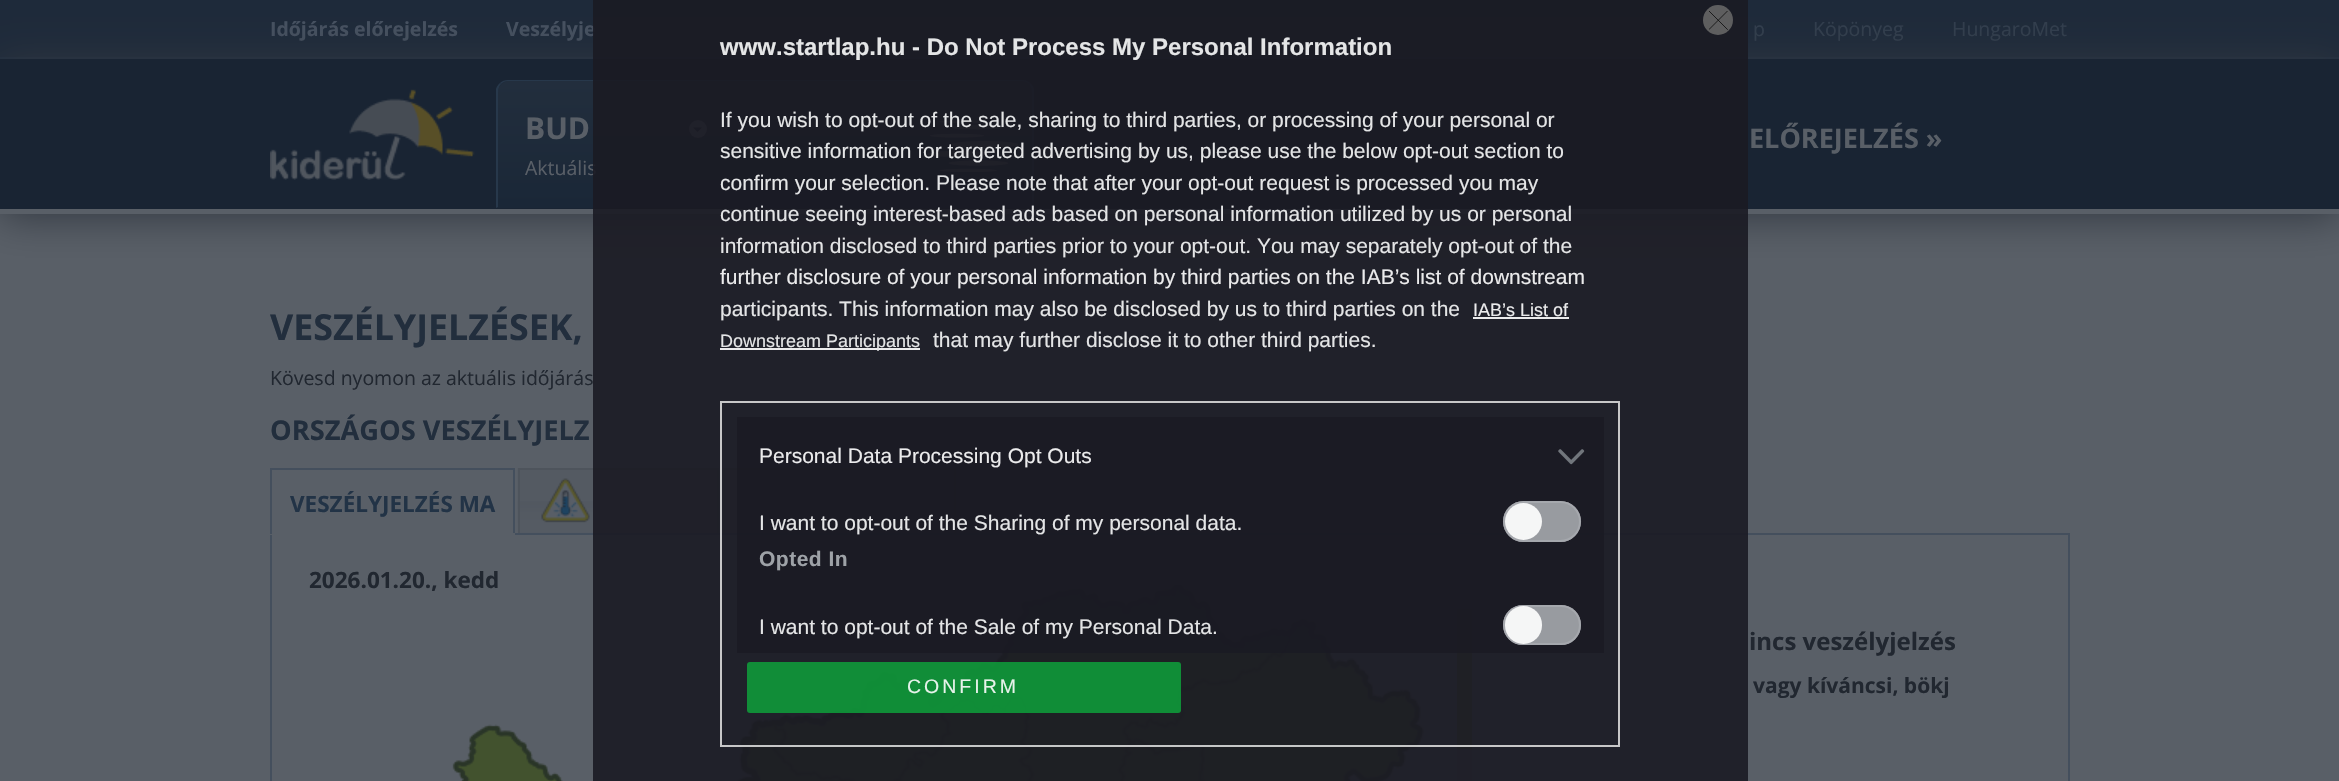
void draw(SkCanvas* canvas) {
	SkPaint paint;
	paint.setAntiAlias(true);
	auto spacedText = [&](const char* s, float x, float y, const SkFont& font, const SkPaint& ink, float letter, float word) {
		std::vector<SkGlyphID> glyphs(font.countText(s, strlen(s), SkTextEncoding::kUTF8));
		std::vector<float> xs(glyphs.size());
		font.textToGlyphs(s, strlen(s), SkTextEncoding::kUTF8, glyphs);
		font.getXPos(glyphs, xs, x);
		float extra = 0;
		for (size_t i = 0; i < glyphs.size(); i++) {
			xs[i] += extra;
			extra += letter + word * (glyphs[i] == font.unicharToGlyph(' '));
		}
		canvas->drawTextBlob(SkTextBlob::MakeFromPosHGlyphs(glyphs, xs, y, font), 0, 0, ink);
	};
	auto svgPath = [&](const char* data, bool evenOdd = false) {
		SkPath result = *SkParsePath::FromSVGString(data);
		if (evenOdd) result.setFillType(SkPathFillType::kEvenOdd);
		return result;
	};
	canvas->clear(0xff595f67);
	paint.setColor(0xff1e2a3a);
	canvas->drawRect(SkRect::MakeXYWH(0, 0, 2339, 57), paint);
	paint.setColor(0xff212e3f);
	canvas->drawRect(SkRect::MakeXYWH(0, 57, 2339, 2), paint);
	SkFont f1(fontMgr->matchFamilyStyle("Open Sans", SkFontStyle::Bold()), 19.5);
	f1.setSubpixel(true);
	paint.setColor(0xff465160);
	canvas->drawString("Időjárás előrejelzés", 270, 36, f1, paint);
	canvas->drawString("Veszélyje", 506, 36, f1, paint);
	SkFont f2(fontMgr->matchFamilyStyle("Open Sans", SkFontStyle::Normal()), 19.5);
	f2.setSubpixel(true);
	paint.setColor(0xff323e4d);
	canvas->drawString("p", 1753, 36, f2, paint);
	canvas->drawString("Köpönyeg", 1813, 36, f2, paint);
	canvas->drawString("HungaroMet", 1952, 36, f2, paint);
	paint.setColor(0xff323841);
	paint.setMaskFilter(SkMaskFilter::MakeBlur(kNormal_SkBlurStyle, 19));
	canvas->drawRect(SkRect::MakeXYWH(0, 63, 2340, 155), paint);
	paint.setMaskFilter(nullptr);
	paint.setColor(0xff192433);
	canvas->drawRect(SkRect::MakeXYWH(0, 59, 2339, 150), paint);
	paint.setColor(0xff595f67);
	canvas->drawRect(SkRect::MakeXYWH(0, 209, 2339, 5), paint);
	{
		const SkColor colors[] = {0xff222e3d, 0xff1a2737};
		const float stops[] = {0, 1};
		const SkPoint ends[] = {{765, 81}, {765, 207}};
		paint.setShader(SkGradientShader::MakeLinear(ends, colors, stops, 2, SkTileMode::kClamp));
		paint.setAlpha(255);
	}
	canvas->drawPath(svgPath("M509 81H1021C1027 81 1032 86 1032 92V207H498V92C498 86 503 81 509 81Z"), paint);
	paint.setShader(nullptr);
	paint.setColor(0xff27384b);
	canvas->drawPath(svgPath("M508 80C505 80 502 81 500 83L501 84C503 82 506 81 508 81H1022C1024 81 1027 82 1029 84L1030 83C1028 81 1025 80 1022 80Z"), paint);
	canvas->drawPath(svgPath("M1030 83C1032 85 1033 86 1034 89V208L1032 207V92C1032 89 1031 86 1029 84Z"), paint);
	paint.setColor(0xff1a2737);
	canvas->drawPath(svgPath("M1033 208H497L498 207H1032Z"), paint);
	paint.setColor(0xff595f67);
	canvas->drawCircle(698, 129, 9, paint);
	paint.setColor(0xff1a2737);
	canvas->drawPath(svgPath("M693 127.5H702L697.5 132Z"), paint);
	paint.setColor(0xff595f67);
	canvas->drawString("Aktuális", 525, 175, f2, paint);
	canvas->drawImageRect(SkImages::DeferredFromEncodedData(SkData::MakeFromFileName("img3.png")), SkRect::MakeXYWH(927, 120, 92, 52), SkSamplingOptions());
	paint.setColor(0xff525861);
	canvas->drawRect(SkRect::MakeXYWH(520, 532, 197, 1), paint);
	canvas->drawImageRect(SkImages::DeferredFromEncodedData(SkData::MakeFromFileName("img4.png")), SkRect::MakeXYWH(517, 468, 200, 65), SkSamplingOptions());
	paint.setColor(0xff4e545c);
	canvas->drawRect(SkRect::MakeXYWH(518, 468, 201, 2), paint);
	canvas->drawRect(SkRect::MakeXYWH(717, 468, 2, 65), paint);
	paint.setColor(0xff525861);
	canvas->drawRect(SkRect::MakeXYWH(725, 532, 229, 1), paint);
	canvas->drawImageRect(SkImages::DeferredFromEncodedData(SkData::MakeFromFileName("img6.png")), SkRect::MakeXYWH(725, 470, 229, 63), SkSamplingOptions());
	paint.setColor(0xff4e545c);
	canvas->drawRect(SkRect::MakeXYWH(723, 468, 233, 2), paint);
	canvas->drawRect(SkRect::MakeXYWH(954, 468, 2, 65), paint);
	canvas->drawRect(SkRect::MakeXYWH(723, 468, 2, 65), paint);
	paint.setStroke(true);
	paint.setStrokeWidth(2);
	paint.setColor(0xff444f5d);
	canvas->drawRect(SkRect::MakeXYWH(271, 534, 1798, 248), paint);
	paint.setStroke(false);
	paint.setColor(0xff545a62);
	canvas->drawRect(SkRect::MakeXYWH(1457, 534, 15, 247), paint);
	SkFont f3(fontMgr->matchFamilyStyle("Open Sans", SkFontStyle::Bold()), 22.5);
	f3.setSubpixel(true);
	paint.setColor(0xff212730);
	canvas->drawString("2026.01.20., kedd", 309, 588, f3, paint);
	canvas->drawImageRect(SkImages::DeferredFromEncodedData(SkData::MakeFromFileName("img7.png")), SkRect::MakeXYWH(452, 584, 972, 197), SkSamplingOptions());
	paint.setColor(0xff495837);
	canvas->drawRect(SkRect::MakeXYWH(1457, 609, 15, 140), paint);
	paint.setColor(0xe6191922);
	canvas->drawRect(SkRect::MakeXYWH(593, 0, 1155, 781), paint);
	paint.setColor(0xff5e5e5f);
	canvas->drawCircle(1718, 20, 15, paint);
	canvas->save();
	canvas->clipRect(SkRect::MakeXYWH(1709, 11, 19, 19));
	paint.setStroke(true);
	paint.setStrokeWidth(0.8);
	paint.setStrokeCap(SkPaint::kRound_Cap);
	paint.setStrokeJoin(SkPaint::kRound_Join);
	paint.setColor(0xff09090a);
	canvas->drawPath(svgPath("M1709 11L1727.5 29.5M1727.5 11L1709 29.5"), paint);
	canvas->restore();
	SkFont f4(fontMgr->matchFamilyStyle("Liberation Sans", SkFontStyle::Bold()), 24);
	f4.setSubpixel(true);
	paint.setStroke(false);
	paint.setColor(0xffe4e5e6);
	canvas->drawString("www.startlap.hu - Do Not Process My Personal Information", 720, 55, f4, paint);
	SkFont f5(fontMgr->matchFamilyStyle("Liberation Sans", SkFontStyle::Normal()), 21);
	f5.setSubpixel(true);
	canvas->drawString("If you wish to opt-out of the sale, sharing to third parties, or processing of your personal or", 720, 127, f5, paint);
	canvas->drawString("sensitive information for targeted advertising by us, please use the below opt-out section to", 720, 158, f5, paint);
	canvas->drawString("confirm your selection. Please note that after your opt-out request is processed you may", 720, 190, f5, paint);
	canvas->drawString("continue seeing interest-based ads based on personal information utilized by us or personal", 720, 221, f5, paint);
	canvas->drawString("information disclosed to third parties prior to your opt-out. You may separately opt-out of the", 720, 253, f5, paint);
	paint.setColor(0xffebebec);
	canvas->drawString("further disclosure of your personal information by third parties on the IAB’s list of downstream", 720, 284, f5, paint);
	paint.setColor(0xffe4e5e6);
	canvas->drawString("participants. This information may also be disclosed by us to third parties on the", 720, 316, f5, paint);
	SkFont f6(fontMgr->matchFamilyStyle("Liberation Sans", SkFontStyle::Normal()), 18);
	f6.setSubpixel(true);
	paint.setColor(0xffebebec);
	canvas->drawString("IAB’s List of", 1473, 316, f6, paint);
	canvas->drawRect(SkRect::MakeXYWH(1473, 317, 96, 2), paint);
	canvas->drawRect(SkRect::MakeXYWH(720, 348, 200, 2), paint);
	paint.setColor(0xffe4e5e6);
	canvas->drawString("Downstream Participants", 720, 347, f6, paint);
	canvas->drawString("that may further disclose it to other third parties.", 933, 347, f5, paint);
	paint.setStroke(true);
	paint.setStrokeWidth(2);
	paint.setStrokeCap(SkPaint::kButt_Cap);
	paint.setStrokeJoin(SkPaint::kMiter_Join);
	paint.setColor(0xe6d8d8d8);
	canvas->drawRect(SkRect::MakeXYWH(721, 402, 898, 344), paint);
	paint.setStroke(false);
	paint.setColor(0xe6191922);
	canvas->drawRect(SkRect::MakeXYWH(737, 417, 867, 236), paint);
	paint.setColor(0xffebebec);
	canvas->drawString("Personal Data Processing Opt Outs", 759, 463, f5, paint);
	canvas->drawImageRect(SkImages::DeferredFromEncodedData(SkData::MakeFromFileName("img1.png")), SkRect::MakeXYWH(1558, 449, 27, 16), SkSamplingOptions());
	paint.setColor(0xffe4e5e6);
	canvas->drawString("I want to opt-out of the Sharing of my personal data.", 759, 530, f5, paint);
	paint.setColor(0xff989ba0);
	canvas->drawRoundRect(SkRect::MakeXYWH(1503, 501, 78, 41), 20.5, 20.5, paint);
	paint.setStroke(true);
	paint.setColor(0xe6a6a9ae);
	canvas->drawRoundRect(SkRect::MakeXYWH(1504, 502, 76, 39), 19.5, 19.5, paint);
	paint.setStroke(false);
	paint.setColor(0xe6ffffff);
	canvas->drawCircle(1523.5, 521.5, 18.5, paint);
	SkFont f7(fontMgr->matchFamilyStyle("Liberation Sans", SkFontStyle::Bold()), 21);
	f7.setSubpixel(true);
	paint.setColor(0xff9ea2a7);
	spacedText("Opted In", 759, 566, f7, paint, 0.5, 0);
	paint.setColor(0xffe4e5e6);
	canvas->drawString("I want to opt-out of the Sale of my Personal Data.", 759, 634, f5, paint);
	paint.setColor(0xff989ba0);
	canvas->drawRoundRect(SkRect::MakeXYWH(1503, 605, 78, 40), 20, 20, paint);
	paint.setStroke(true);
	paint.setColor(0xe6a6a9ae);
	canvas->drawRoundRect(SkRect::MakeXYWH(1504, 606, 76, 38), 19, 19, paint);
	paint.setStroke(false);
	paint.setColor(0xe6ffffff);
	canvas->drawRoundRect(SkRect::MakeXYWH(1505, 606, 37, 38), 18.5, 18.5, paint);
	paint.setColor(0xe60e9839);
	canvas->drawRoundRect(SkRect::MakeXYWH(747, 662, 434, 51), 3, 3, paint);
	SkFont f8(fontMgr->matchFamilyStyle("Liberation Sans", SkFontStyle::Normal()), 19.5);
	f8.setSubpixel(true);
	paint.setColor(0xffe7f3eb);
	spacedText("CONFIRM", 907, 693, f8, paint, 3, 0);
	canvas->drawImageRect(SkImages::DeferredFromEncodedData(SkData::MakeFromFileName("img2.png")), SkRect::MakeXYWH(270, 89, 205, 91), SkSamplingOptions());
	paint.setColor(0xff27384b);
	canvas->drawPath(svgPath("M496 89C497 86 498 85 500 83L501 84C499 86 498 89 498 92V207L496 208Z"), paint);
	SkFont f9(fontMgr->matchFamilyStyle("Open Sans", SkFontStyle::Bold()), 30);
	f9.setSubpixel(true);
	paint.setColor(0xff595f67);
	canvas->drawString("BUD", 525, 139, f9, paint);
	SkFont f10(fontMgr->matchFamilyStyle("Open Sans", SkFontStyle::Bold()), 27);
	f10.setSubpixel(true);
	canvas->drawString("ELŐREJELZÉS »", 1749, 148, f10, paint);
	SkFont f11(fontMgr->matchFamilyStyle("Open Sans", SkFontStyle::Bold()), 35.75);
	f11.setSubpixel(true);
	paint.setColor(0xff222e3d);
	canvas->drawString("VESZÉLYJELZÉSEK,", 270, 340, f11, paint);
	paint.setColor(0xff212730);
	canvas->drawString("Kövesd nyomon az aktuális időjárás", 270, 385, f2, paint);
	SkFont f12(fontMgr->matchFamilyStyle("Open Sans", SkFontStyle::Bold()), 27.25);
	f12.setSubpixel(true);
	paint.setColor(0xff222e3d);
	canvas->drawString("ORSZÁGOS VESZÉLYJELZ", 270, 440, f12, paint);
	paint.setColor(0xff444f5d);
	canvas->drawRect(SkRect::MakeXYWH(270, 468, 245, 2), paint);
	canvas->drawRect(SkRect::MakeXYWH(513, 468, 2, 66), paint);
	paint.setColor(0xff595f67);
	canvas->drawRect(SkRect::MakeXYWH(270, 533, 245, 2), paint);
	paint.setColor(0xff444f5d);
	canvas->drawRect(SkRect::MakeXYWH(270, 468, 2, 66), paint);
	paint.setColor(0xff223346);
	canvas->drawString("VESZÉLYJELZÉS MA", 290, 512, f3, paint);
	paint.setColor(0xff4e545c);
	canvas->drawRect(SkRect::MakeXYWH(518, 468, 2, 65), paint);
	canvas->drawImageRect(SkImages::DeferredFromEncodedData(SkData::MakeFromFileName("img5.png")), SkRect::MakeXYWH(541, 478, 49, 45), SkSamplingOptions());
	SkFont f13(fontMgr->matchFamilyStyle("Open Sans", SkFontStyle::Bold()), 24);
	f13.setSubpixel(true);
	paint.setColor(0xff212730);
	canvas->drawString("incs veszélyjelzés", 1749, 650, f13, paint);
	SkFont f14(fontMgr->matchFamilyStyle("Open Sans", SkFontStyle::Bold()), 21);
	f14.setSubpixel(true);
	canvas->drawString("vagy kíváncsi, bökj", 1753, 693, f14, paint);
}
